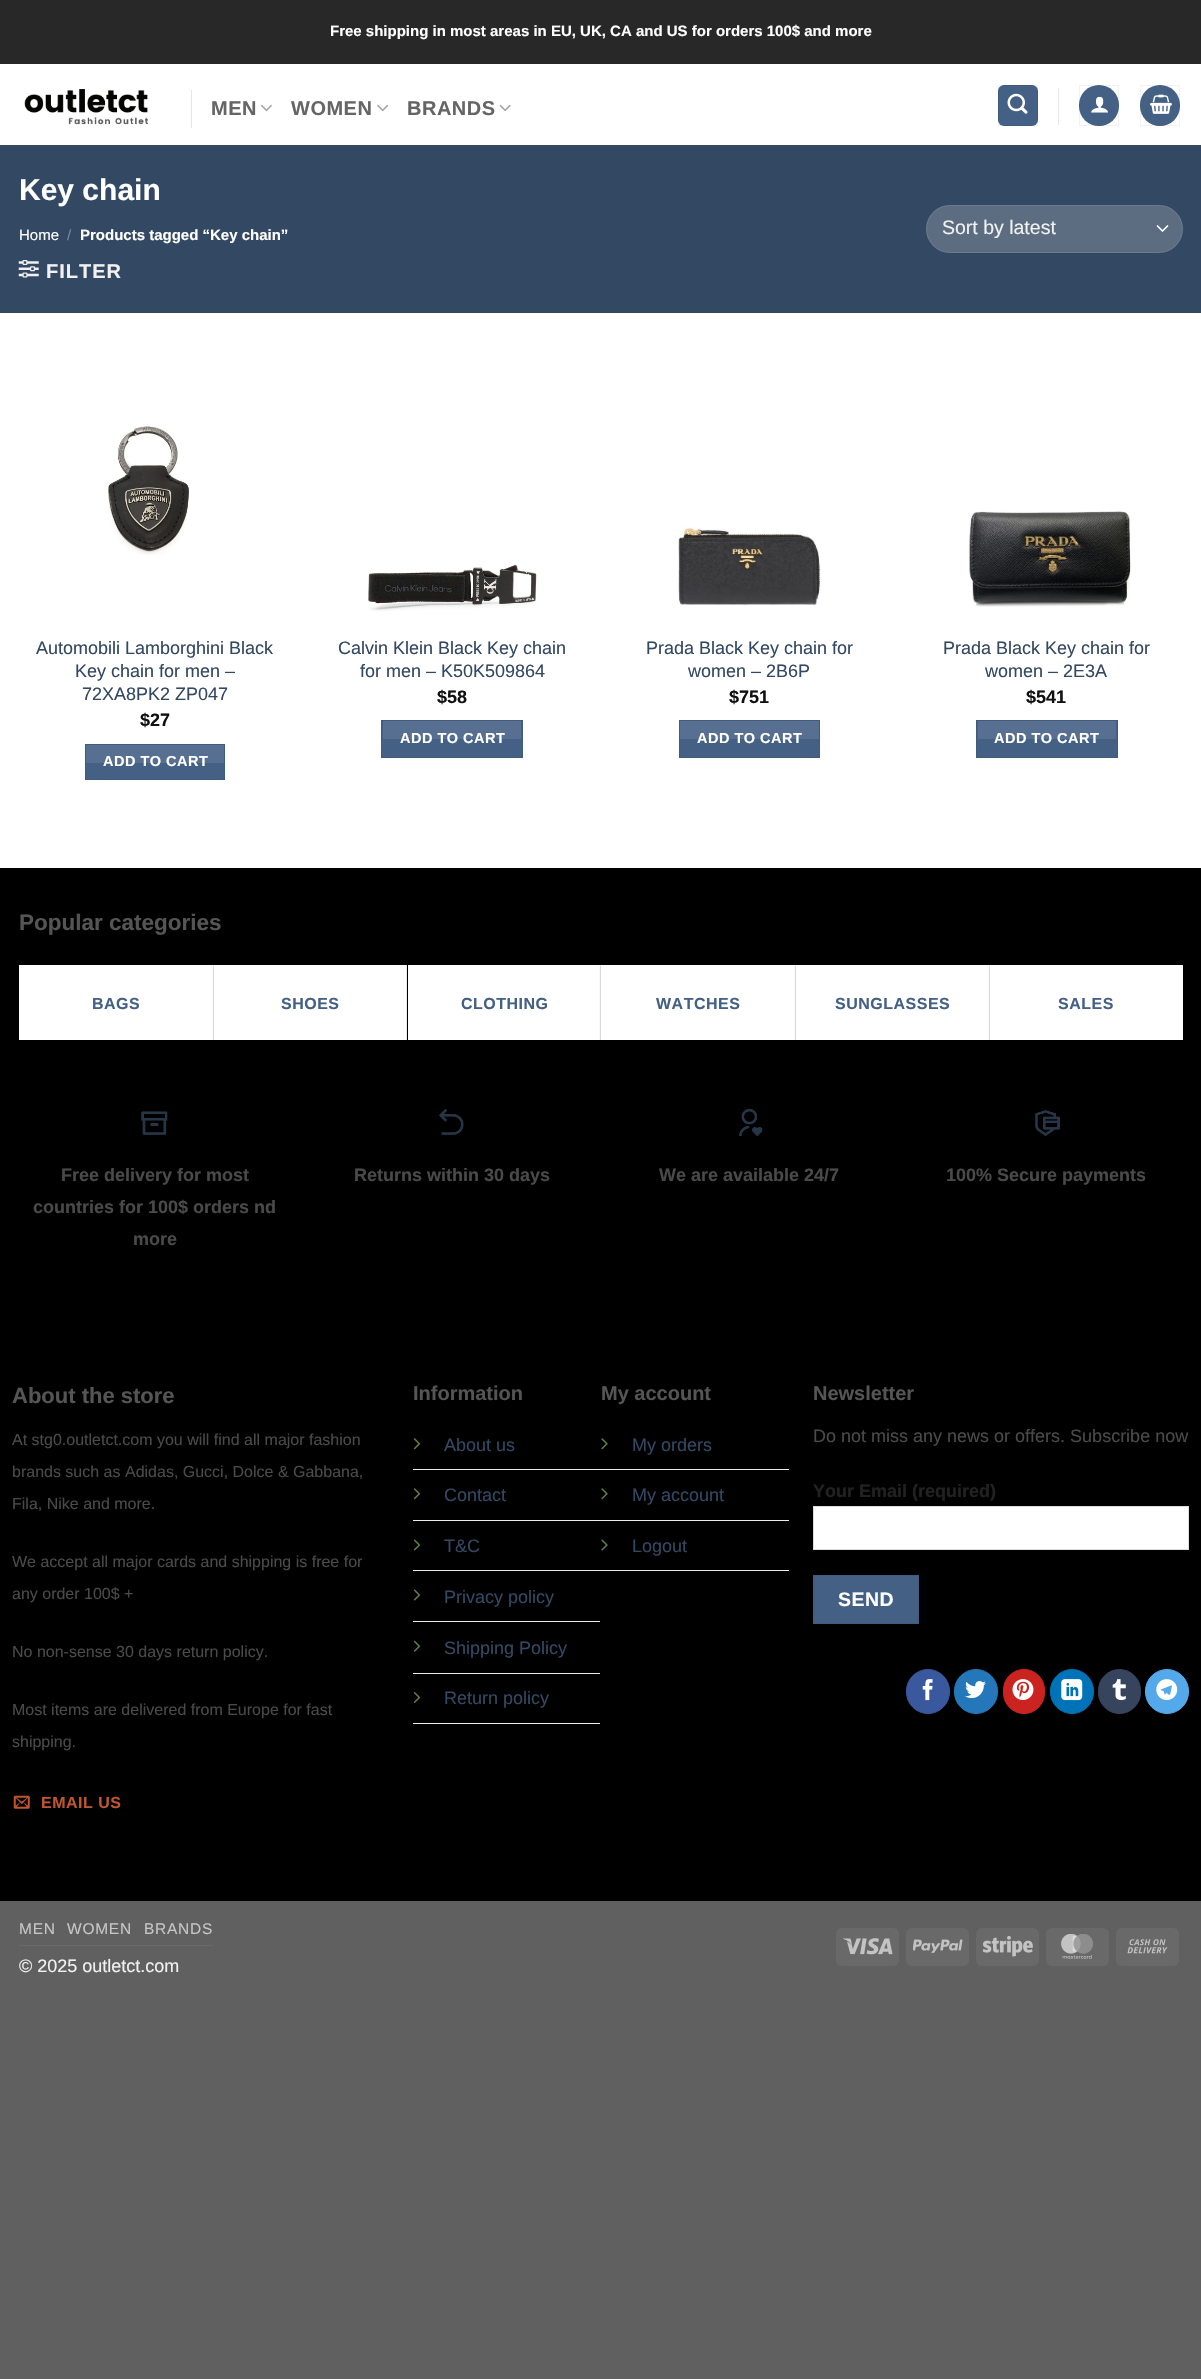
void draw(SkCanvas* canvas) {
	SkPaint paint;
	paint.setAntiAlias(true);
	auto spacedText = [&](const char* s, float x, float y, const SkFont& font, const SkPaint& ink, float letter, float word) {
		std::vector<SkGlyphID> glyphs(font.countText(s, strlen(s), SkTextEncoding::kUTF8));
		std::vector<float> xs(glyphs.size());
		font.textToGlyphs(s, strlen(s), SkTextEncoding::kUTF8, glyphs);
		font.getXPos(glyphs, xs, x);
		float extra = 0;
		for (size_t i = 0; i < glyphs.size(); i++) {
			xs[i] += extra;
			extra += letter + word * (glyphs[i] == font.unicharToGlyph(' '));
		}
		canvas->drawTextBlob(SkTextBlob::MakeFromPosHGlyphs(glyphs, xs, y, font), 0, 0, ink);
	};
	auto svgPath = [&](const char* data, bool evenOdd = false) {
		SkPath result = *SkParsePath::FromSVGString(data);
		if (evenOdd) result.setFillType(SkPathFillType::kEvenOdd);
		return result;
	};
	canvas->clear(0xff606060);
	paint.setColor(0xffffffff);
	canvas->drawRect(SkRect::MakeXYWH(0, 64, 1201, 804), paint);
	paint.setColor(0xff282828);
	canvas->drawRect(SkRect::MakeXYWH(0, 0, 1201, 64), paint);
	SkFont f1(fontMgr->matchFamilyStyle("Liberation Sans", SkFontStyle::Bold()), 15);
	f1.setSubpixel(true);
	paint.setColor(0xffffffff);
	canvas->drawString("Free shipping in most areas in EU, UK, CA and US for orders 100$ and more", 330, 36, f1, paint);
	canvas->drawImageRect(SkImages::DeferredFromEncodedData(SkData::MakeFromFileName("img1.png")), SkRect::MakeXYWH(24, 89, 124, 36), SkSamplingOptions());
	paint.setColor(0xffe6e6e6);
	canvas->drawRect(SkRect::MakeXYWH(191, 90, 1, 38), paint);
	SkFont f2(fontMgr->matchFamilyStyle("Liberation Sans", SkFontStyle::Bold()), 20);
	f2.setSubpixel(true);
	paint.setColor(0xff656565);
	spacedText("MEN", 211, 115, f2, paint, 0.5, 0);
	canvas->drawImageRect(SkImages::DeferredFromEncodedData(SkData::MakeFromFileName("img2.png")), SkRect::MakeXYWH(260, 104, 12, 8), SkSamplingOptions());
	spacedText("WOMEN", 291, 115, f2, paint, 0.5, 0);
	canvas->drawImageRect(SkImages::DeferredFromEncodedData(SkData::MakeFromFileName("img3.png")), SkRect::MakeXYWH(377, 104, 12, 8), SkSamplingOptions());
	spacedText("BRANDS", 407, 115, f2, paint, 0.5, 0);
	canvas->drawImageRect(SkImages::DeferredFromEncodedData(SkData::MakeFromFileName("img4.png")), SkRect::MakeXYWH(499, 104, 12, 8), SkSamplingOptions());
	paint.setColor(0xff446084);
	canvas->drawRoundRect(SkRect::MakeXYWH(998, 85, 40, 41), 6, 6, paint);
	paint.setStroke(true);
	paint.setStrokeWidth(1);
	paint.setColor(0x0d000000);
	canvas->drawRect(SkRect::MakeXYWH(998.5, 85.5, 39, 40), paint);
	canvas->drawImageRect(SkImages::DeferredFromEncodedData(SkData::MakeFromFileName("img5.png")), SkRect::MakeXYWH(1007, 93, 21, 21), SkSamplingOptions());
	paint.setStroke(false);
	paint.setColor(0xffe6e6e6);
	canvas->drawRect(SkRect::MakeXYWH(1058, 88, 1, 37), paint);
	paint.setColor(0xff446084);
	canvas->drawRoundRect(SkRect::MakeXYWH(1079, 85, 40, 41), 20, 20, paint);
	paint.setStroke(true);
	paint.setColor(0x0d000000);
	canvas->drawRect(SkRect::MakeXYWH(1079.5, 85.5, 39, 40), paint);
	canvas->drawImageRect(SkImages::DeferredFromEncodedData(SkData::MakeFromFileName("img6.png")), SkRect::MakeXYWH(1091, 96, 17, 17), SkSamplingOptions());
	paint.setStroke(false);
	paint.setColor(0xff446084);
	canvas->drawRoundRect(SkRect::MakeXYWH(1140, 85, 40, 41), 20, 20, paint);
	paint.setStroke(true);
	paint.setColor(0x0d000000);
	canvas->drawRect(SkRect::MakeXYWH(1140.5, 85.5, 39, 40), paint);
	canvas->drawImageRect(SkImages::DeferredFromEncodedData(SkData::MakeFromFileName("img7.png")), SkRect::MakeXYWH(1150, 94, 22, 20), SkSamplingOptions());
	paint.setStroke(false);
	paint.setColor(0xff334863);
	canvas->drawRect(SkRect::MakeXYWH(0, 145, 1201, 168), paint);
	SkFont f3(fontMgr->matchFamilyStyle("Liberation Sans", SkFontStyle::Bold()), 30);
	f3.setSubpixel(true);
	paint.setColor(0xffffffff);
	canvas->drawString("Key chain", 19, 200, f3, paint);
	SkFont f4(fontMgr->matchFamilyStyle("Liberation Sans", SkFontStyle::Normal()), 15);
	f4.setSubpixel(true);
	canvas->drawString("Home", 19, 240, f4, paint);
	paint.setColor(0xff7a889a);
	canvas->drawString("/", 67, 240, f4, paint);
	paint.setColor(0xffffffff);
	canvas->drawString("Products tagged “Key chain”", 80, 240, f1, paint);
	canvas->drawImageRect(SkImages::DeferredFromEncodedData(SkData::MakeFromFileName("img8.png")), SkRect::MakeXYWH(18, 260, 21, 18), SkSamplingOptions());
	paint.setColor(0xfff1f1f1);
	spacedText("FILTER", 46, 278, f2, paint, 1, 0);
	paint.setColor(0xff5c6d82);
	canvas->drawRoundRect(SkRect::MakeXYWH(926, 205, 257, 48), 24, 24, paint);
	paint.setStroke(true);
	paint.setStrokeWidth(1.7);
	paint.setStrokeCap(SkPaint::kRound_Cap);
	paint.setStrokeJoin(SkPaint::kRound_Join);
	paint.setColor(0xffffffff);
	canvas->drawPath(svgPath("M1157.5 226L1162.5 231L1167.5 226"), paint);
	paint.setStrokeWidth(1);
	paint.setStrokeCap(SkPaint::kButt_Cap);
	paint.setStrokeJoin(SkPaint::kMiter_Join);
	paint.setColor(0x17ffffff);
	canvas->drawRoundRect(SkRect::MakeXYWH(926.5, 205.5, 256, 47), 23.5, 23.5, paint);
	SkFont f5(fontMgr->matchFamilyStyle("Liberation Sans", SkFontStyle::Normal()), 19.5);
	f5.setSubpixel(true);
	paint.setStroke(false);
	paint.setColor(0xfff1f1f1);
	canvas->drawString("Sort by latest", 942, 234, f5, paint);
	canvas->drawImageRect(SkImages::DeferredFromEncodedData(SkData::MakeFromFileName("img9.png")), SkRect::MakeXYWH(107, 426, 83, 129), SkSamplingOptions());
	SkFont f6(fontMgr->matchFamilyStyle("Liberation Sans", SkFontStyle::Normal()), 18);
	f6.setSubpixel(true);
	paint.setColor(0xff334862);
	canvas->drawString("Automobili Lamborghini Black", 36, 654, f6, paint);
	canvas->drawString("Key chain for men –", 75, 677, f6, paint);
	canvas->drawString("72XA8PK2 ZP047", 82, 700, f6, paint);
	SkFont f7(fontMgr->matchFamilyStyle("Liberation Sans", SkFontStyle::Bold()), 18);
	f7.setSubpixel(true);
	paint.setColor(0xff111111);
	canvas->drawString("$27", 140, 726, f7, paint);
	paint.setColor(0xff446084);
	canvas->drawRect(SkRect::MakeXYWH(85.5, 744.5, 139, 35), paint);
	paint.setStroke(true);
	paint.setColor(0xff415b7d);
	canvas->drawRect(SkRect::MakeXYWH(85.5, 744.5, 139, 35), paint);
	paint.setStroke(false);
	paint.setColor(0x1affffff);
	canvas->drawRect(SkRect::MakeXYWH(86, 745, 138, 18), paint);
	SkFont f8(fontMgr->matchFamilyStyle("Liberation Sans", SkFontStyle::Bold()), 14.5);
	f8.setSubpixel(true);
	paint.setColor(0xffffffff);
	spacedText("ADD TO CART", 103, 766, f8, paint, 0.5, 0);
	canvas->drawImageRect(SkImages::DeferredFromEncodedData(SkData::MakeFromFileName("img10.png")), SkRect::MakeXYWH(368, 564, 169, 47), SkSamplingOptions());
	paint.setColor(0xff334862);
	canvas->drawString("Calvin Klein Black Key chain", 338, 654, f6, paint);
	canvas->drawString("for men – K50K509864", 360, 677, f6, paint);
	paint.setColor(0xff111111);
	canvas->drawString("$58", 437, 703, f7, paint);
	paint.setColor(0xff446084);
	canvas->drawRect(SkRect::MakeXYWH(381.5, 720.5, 141, 37), paint);
	paint.setStroke(true);
	paint.setColor(0xff415b7d);
	canvas->drawRect(SkRect::MakeXYWH(381.5, 720.5, 141, 37), paint);
	paint.setStroke(false);
	paint.setColor(0x1affffff);
	canvas->drawRect(SkRect::MakeXYWH(383, 721, 138, 18), paint);
	paint.setColor(0xffffffff);
	spacedText("ADD TO CART", 400, 743, f8, paint, 0.5, 0);
	canvas->drawImageRect(SkImages::DeferredFromEncodedData(SkData::MakeFromFileName("img11.png")), SkRect::MakeXYWH(678, 527, 144, 78), SkSamplingOptions());
	paint.setColor(0xff334862);
	canvas->drawString("Prada Black Key chain for", 646, 654, f6, paint);
	canvas->drawString("women – 2B6P", 688, 677, f6, paint);
	paint.setColor(0xff111111);
	canvas->drawString("$751", 729, 703, f7, paint);
	paint.setColor(0xff446084);
	canvas->drawRect(SkRect::MakeXYWH(679.5, 720.5, 140, 37), paint);
	paint.setStroke(true);
	paint.setColor(0xff415b7d);
	canvas->drawRect(SkRect::MakeXYWH(679.5, 720.5, 140, 37), paint);
	paint.setStroke(false);
	paint.setColor(0x1affffff);
	canvas->drawRect(SkRect::MakeXYWH(680, 721, 139, 18), paint);
	paint.setColor(0xffffffff);
	spacedText("ADD TO CART", 697, 743, f8, paint, 0.5, 0);
	canvas->drawImageRect(SkImages::DeferredFromEncodedData(SkData::MakeFromFileName("img12.png")), SkRect::MakeXYWH(968, 511, 163, 96), SkSamplingOptions());
	paint.setColor(0xff334862);
	canvas->drawString("Prada Black Key chain for", 943, 654, f6, paint);
	canvas->drawString("women – 2E3A", 985, 677, f6, paint);
	paint.setColor(0xff111111);
	canvas->drawString("$541", 1026, 703, f7, paint);
	paint.setColor(0xff446084);
	canvas->drawRect(SkRect::MakeXYWH(976.5, 720.5, 141, 37), paint);
	paint.setStroke(true);
	paint.setColor(0xff415b7d);
	canvas->drawRect(SkRect::MakeXYWH(976.5, 720.5, 141, 37), paint);
	paint.setStroke(false);
	paint.setColor(0x1affffff);
	canvas->drawRect(SkRect::MakeXYWH(978, 721, 138, 18), paint);
	paint.setColor(0xffffffff);
	spacedText("ADD TO CART", 994, 743, f8, paint, 0.5, 0);
	paint.setColor(0xff000000);
	canvas->drawRect(SkRect::MakeXYWH(0, 868, 1201, 1033), paint);
	SkFont f9(fontMgr->matchFamilyStyle("Liberation Sans", SkFontStyle::Bold()), 22.5);
	f9.setSubpixel(true);
	paint.setColor(0xff555555);
	canvas->drawString("Popular categories", 19, 930, f9, paint);
	paint.setColor(0xffffffff);
	canvas->drawRect(SkRect::MakeXYWH(19, 965, 194, 75), paint);
	SkFont f10(fontMgr->matchFamilyStyle("Liberation Sans", SkFontStyle::Bold()), 16);
	f10.setSubpixel(true);
	paint.setColor(0xff446084);
	spacedText("BAGS", 92, 1009, f10, paint, 0.5, 0);
	paint.setColor(0xffececec);
	canvas->drawRect(SkRect::MakeXYWH(213, 965, 1, 75), paint);
	paint.setColor(0x3d000000);
	paint.setMaskFilter(SkMaskFilter::MakeBlur(kNormal_SkBlurStyle, 1));
	canvas->drawRect(SkRect::MakeXYWH(214, 966, 192, 75), paint);
	paint.setMaskFilter(nullptr);
	paint.setColor(0xffffffff);
	canvas->drawRect(SkRect::MakeXYWH(214, 965, 192, 75), paint);
	paint.setColor(0xff446084);
	spacedText("SHOES", 281, 1009, f10, paint, 0.5, 0);
	paint.setColor(0xffececec);
	canvas->drawRect(SkRect::MakeXYWH(406, 965, 1, 75), paint);
	paint.setColor(0xffffffff);
	canvas->drawRect(SkRect::MakeXYWH(408, 965, 192, 75), paint);
	paint.setColor(0xff446084);
	spacedText("CLOTHING", 461, 1009, f10, paint, 0.5, 0);
	paint.setColor(0xffececec);
	canvas->drawRect(SkRect::MakeXYWH(600, 965, 1, 75), paint);
	paint.setColor(0x3d000000);
	paint.setMaskFilter(SkMaskFilter::MakeBlur(kNormal_SkBlurStyle, 1));
	canvas->drawRect(SkRect::MakeXYWH(601, 966, 194, 75), paint);
	paint.setMaskFilter(nullptr);
	paint.setColor(0xffffffff);
	canvas->drawRect(SkRect::MakeXYWH(601, 965, 194, 75), paint);
	paint.setColor(0xff446084);
	spacedText("WATCHES", 656, 1009, f10, paint, 0.5, 0);
	paint.setColor(0xffececec);
	canvas->drawRect(SkRect::MakeXYWH(795, 965, 1, 75), paint);
	paint.setColor(0x3d000000);
	paint.setMaskFilter(SkMaskFilter::MakeBlur(kNormal_SkBlurStyle, 1));
	canvas->drawRect(SkRect::MakeXYWH(796, 966, 193, 75), paint);
	paint.setMaskFilter(nullptr);
	paint.setColor(0xffffffff);
	canvas->drawRect(SkRect::MakeXYWH(796, 965, 193, 75), paint);
	paint.setColor(0xff446084);
	spacedText("SUNGLASSES", 835, 1009, f10, paint, 0.5, 0);
	paint.setColor(0xffececec);
	canvas->drawRect(SkRect::MakeXYWH(989, 965, 1, 75), paint);
	paint.setColor(0x3d000000);
	paint.setMaskFilter(SkMaskFilter::MakeBlur(kNormal_SkBlurStyle, 1));
	canvas->drawRect(SkRect::MakeXYWH(990, 966, 193, 75), paint);
	paint.setMaskFilter(nullptr);
	paint.setColor(0xffffffff);
	canvas->drawRect(SkRect::MakeXYWH(990, 965, 193, 75), paint);
	paint.setColor(0xff446084);
	spacedText("SALES", 1058, 1009, f10, paint, 0.5, 0);
	canvas->drawImageRect(SkImages::DeferredFromEncodedData(SkData::MakeFromFileName("img13.png")), SkRect::MakeXYWH(141, 1111, 27, 24), SkSamplingOptions());
	paint.setColor(0xff4a4a4a);
	canvas->drawString("Free delivery for most", 61, 1181, f7, paint);
	canvas->drawString("countries for 100$ orders nd", 33, 1213, f7, paint);
	canvas->drawString("more", 133, 1245, f7, paint);
	canvas->drawImageRect(SkImages::DeferredFromEncodedData(SkData::MakeFromFileName("img14.png")), SkRect::MakeXYWH(439, 1109, 25, 26), SkSamplingOptions());
	canvas->drawString("Returns within 30 days", 354, 1181, f7, paint);
	canvas->drawImageRect(SkImages::DeferredFromEncodedData(SkData::MakeFromFileName("img15.png")), SkRect::MakeXYWH(739, 1108, 24, 29), SkSamplingOptions());
	canvas->drawString("We are available 24/7", 659, 1181, f7, paint);
	canvas->drawImageRect(SkImages::DeferredFromEncodedData(SkData::MakeFromFileName("img16.png")), SkRect::MakeXYWH(1035, 1110, 25, 26), SkSamplingOptions());
	canvas->drawString("100% Secure payments", 946, 1181, f7, paint);
	SkFont f11(fontMgr->matchFamilyStyle("Liberation Sans", SkFontStyle::Bold()), 22);
	f11.setSubpixel(true);
	paint.setColor(0xff555555);
	canvas->drawString("About the store", 12, 1403, f11, paint);
	SkFont f12(fontMgr->matchFamilyStyle("Liberation Sans", SkFontStyle::Normal()), 16);
	f12.setSubpixel(true);
	paint.setColor(0xff4a4a4a);
	canvas->drawString("At stg0.outletct.com you will find all major fashion", 12, 1445, f12, paint);
	canvas->drawString("brands such as Adidas, Gucci, Dolce & Gabbana,", 12, 1477, f12, paint);
	canvas->drawString("Fila, Nike and more.", 12, 1509, f12, paint);
	canvas->drawString("We accept all major cards and shipping is free for", 12, 1567, f12, paint);
	canvas->drawString("any order 100$ +", 12, 1599, f12, paint);
	canvas->drawString("No non-sense 30 days return policy.", 12, 1657, f12, paint);
	canvas->drawString("Most items are delivered from Europe for fast", 12, 1715, f12, paint);
	canvas->drawString("shipping.", 12, 1747, f12, paint);
	canvas->drawImageRect(SkImages::DeferredFromEncodedData(SkData::MakeFromFileName("img17.png")), SkRect::MakeXYWH(13, 1795, 17, 14), SkSamplingOptions());
	paint.setColor(0xffc05530);
	spacedText("EMAIL US", 41, 1808, f10, paint, 0.5, 0);
	paint.setColor(0xff555555);
	canvas->drawString("Information", 413, 1400, f2, paint);
	paint.setColor(0xffececec);
	canvas->drawRect(SkRect::MakeXYWH(413, 1469, 376, 1), paint);
	canvas->drawImageRect(SkImages::DeferredFromEncodedData(SkData::MakeFromFileName("img18.png")), SkRect::MakeXYWH(413, 1438, 8, 12), SkSamplingOptions());
	paint.setColor(0xff334862);
	canvas->drawString("About us", 444, 1451, f6, paint);
	paint.setColor(0xffececec);
	canvas->drawRect(SkRect::MakeXYWH(413, 1520, 376, 1), paint);
	canvas->drawImageRect(SkImages::DeferredFromEncodedData(SkData::MakeFromFileName("img18.png")), SkRect::MakeXYWH(413, 1488, 8, 12), SkSamplingOptions());
	paint.setColor(0xff334862);
	canvas->drawString("Contact", 444, 1501, f6, paint);
	paint.setColor(0xffececec);
	canvas->drawRect(SkRect::MakeXYWH(413, 1570, 376, 1), paint);
	canvas->drawImageRect(SkImages::DeferredFromEncodedData(SkData::MakeFromFileName("img19.png")), SkRect::MakeXYWH(413, 1539, 8, 12), SkSamplingOptions());
	paint.setColor(0xff334862);
	canvas->drawString("T&C", 444, 1552, f6, paint);
	paint.setColor(0xffececec);
	canvas->drawRect(SkRect::MakeXYWH(413, 1621, 187, 1), paint);
	canvas->drawImageRect(SkImages::DeferredFromEncodedData(SkData::MakeFromFileName("img19.png")), SkRect::MakeXYWH(413, 1589, 8, 12), SkSamplingOptions());
	paint.setColor(0xff334862);
	canvas->drawString("Privacy policy", 444, 1603, f6, paint);
	paint.setColor(0xffececec);
	canvas->drawRect(SkRect::MakeXYWH(413, 1673, 187, 1), paint);
	canvas->drawImageRect(SkImages::DeferredFromEncodedData(SkData::MakeFromFileName("img20.png")), SkRect::MakeXYWH(413, 1640, 8, 12), SkSamplingOptions());
	paint.setColor(0xff334862);
	canvas->drawString("Shipping Policy", 444, 1654, f6, paint);
	paint.setColor(0xffececec);
	canvas->drawRect(SkRect::MakeXYWH(413, 1723, 187, 1), paint);
	canvas->drawImageRect(SkImages::DeferredFromEncodedData(SkData::MakeFromFileName("img21.png")), SkRect::MakeXYWH(413, 1692, 8, 11), SkSamplingOptions());
	paint.setColor(0xff334862);
	canvas->drawString("Return policy", 444, 1704, f6, paint);
	paint.setColor(0xff555555);
	canvas->drawString("My account", 601, 1400, f2, paint);
	canvas->drawImageRect(SkImages::DeferredFromEncodedData(SkData::MakeFromFileName("img22.png")), SkRect::MakeXYWH(601, 1438, 7, 12), SkSamplingOptions());
	paint.setColor(0xff334862);
	canvas->drawString("My orders", 632, 1451, f6, paint);
	canvas->drawImageRect(SkImages::DeferredFromEncodedData(SkData::MakeFromFileName("img22.png")), SkRect::MakeXYWH(601, 1488, 7, 12), SkSamplingOptions());
	canvas->drawString("My account", 632, 1501, f6, paint);
	canvas->drawImageRect(SkImages::DeferredFromEncodedData(SkData::MakeFromFileName("img23.png")), SkRect::MakeXYWH(601, 1539, 7, 12), SkSamplingOptions());
	canvas->drawString("Logout", 632, 1552, f6, paint);
	paint.setColor(0xff555555);
	canvas->drawString("Newsletter", 813, 1400, f2, paint);
	paint.setColor(0xff4a4a4a);
	canvas->drawString("Do not miss any news or offers. Subscribe now", 813, 1442, f6, paint);
	paint.setColor(0xff222222);
	canvas->drawString("Your Email (required)", 813, 1497, f7, paint);
	paint.setColor(0xffffffff);
	canvas->drawRect(SkRect::MakeXYWH(813.5, 1506.5, 375, 43), paint);
	paint.setStroke(true);
	paint.setColor(0xffdddddd);
	canvas->drawRect(SkRect::MakeXYWH(813.5, 1506.5, 375, 43), paint);
	paint.setStroke(false);
	paint.setColor(0xff446084);
	canvas->drawRect(SkRect::MakeXYWH(813.5, 1575.5, 105, 48), paint);
	paint.setStroke(true);
	paint.setColor(0xff415b7d);
	canvas->drawRect(SkRect::MakeXYWH(813.5, 1575.5, 105, 48), paint);
	SkFont f13(fontMgr->matchFamilyStyle("Liberation Sans", SkFontStyle::Bold()), 19.5);
	f13.setSubpixel(true);
	paint.setStroke(false);
	paint.setColor(0xffffffff);
	spacedText("SEND", 838, 1606, f13, paint, 0.5, 0);
	paint.setColor(0xff3a589d);
	canvas->drawRoundRect(SkRect::MakeXYWH(906.5, 1669.5, 43, 44), 21.5, 21.5, paint);
	paint.setStroke(true);
	canvas->drawRoundRect(SkRect::MakeXYWH(906.5, 1669.5, 43, 44), 21.5, 21.5, paint);
	canvas->drawImageRect(SkImages::DeferredFromEncodedData(SkData::MakeFromFileName("img24.png")), SkRect::MakeXYWH(922, 1679, 11, 22), SkSamplingOptions());
	paint.setStroke(false);
	paint.setColor(0xff2478ba);
	canvas->drawRoundRect(SkRect::MakeXYWH(954.5, 1669.5, 43, 44), 21.5, 21.5, paint);
	paint.setStroke(true);
	canvas->drawRoundRect(SkRect::MakeXYWH(954.5, 1669.5, 43, 44), 21.5, 21.5, paint);
	canvas->drawImageRect(SkImages::DeferredFromEncodedData(SkData::MakeFromFileName("img25.png")), SkRect::MakeXYWH(965, 1681, 21, 18), SkSamplingOptions());
	paint.setStroke(false);
	paint.setColor(0xffcb2320);
	canvas->drawRoundRect(SkRect::MakeXYWH(1003.5, 1669.5, 41, 44), 20.5, 20.5, paint);
	paint.setStroke(true);
	canvas->drawRoundRect(SkRect::MakeXYWH(1003.5, 1669.5, 41, 44), 20.5, 20.5, paint);
	canvas->drawImageRect(SkImages::DeferredFromEncodedData(SkData::MakeFromFileName("img26.png")), SkRect::MakeXYWH(1012, 1679, 22, 21), SkSamplingOptions());
	paint.setStroke(false);
	paint.setColor(0xff0072b7);
	canvas->drawRoundRect(SkRect::MakeXYWH(1050.5, 1669.5, 43, 44), 21.5, 21.5, paint);
	paint.setStroke(true);
	canvas->drawRoundRect(SkRect::MakeXYWH(1050.5, 1669.5, 43, 44), 21.5, 21.5, paint);
	canvas->drawImageRect(SkImages::DeferredFromEncodedData(SkData::MakeFromFileName("img27.png")), SkRect::MakeXYWH(1061, 1679, 22, 22), SkSamplingOptions());
	paint.setStroke(false);
	paint.setColor(0xff36455d);
	canvas->drawRoundRect(SkRect::MakeXYWH(1098.5, 1669.5, 42, 44), 21, 21, paint);
	paint.setStroke(true);
	canvas->drawRoundRect(SkRect::MakeXYWH(1098.5, 1669.5, 42, 44), 21, 21, paint);
	canvas->drawImageRect(SkImages::DeferredFromEncodedData(SkData::MakeFromFileName("img28.png")), SkRect::MakeXYWH(1112, 1679, 14, 22), SkSamplingOptions());
	paint.setStroke(false);
	paint.setColor(0xff54a9ea);
	canvas->drawRoundRect(SkRect::MakeXYWH(1145.5, 1669.5, 43, 44), 21.5, 21.5, paint);
	paint.setStroke(true);
	canvas->drawRoundRect(SkRect::MakeXYWH(1145.5, 1669.5, 43, 44), 21.5, 21.5, paint);
	canvas->drawImageRect(SkImages::DeferredFromEncodedData(SkData::MakeFromFileName("img29.png")), SkRect::MakeXYWH(1156, 1679, 22, 22), SkSamplingOptions());
	paint.setStroke(false);
	paint.setColor(0xff6a6a6a);
	canvas->drawRect(SkRect::MakeXYWH(19, 1945, 194, 1), paint);
	SkFont f14(fontMgr->matchFamilyStyle("Liberation Sans", SkFontStyle::Normal()), 15.5);
	f14.setSubpixel(true);
	paint.setColor(0xffc6c6c6);
	spacedText("MEN", 19, 1934, f14, paint, 0.75, 0);
	spacedText("WOMEN", 67, 1934, f14, paint, 0.75, 0);
	spacedText("BRANDS", 144, 1934, f14, paint, 0.75, 0);
	paint.setColor(0xfff1f1f1);
	canvas->drawString("© 2025 outletct.com", 19, 1972, f6, paint);
	paint.setColor(0xff696969);
	canvas->drawRoundRect(SkRect::MakeXYWH(836, 1928, 63, 38), 6, 6, paint);
	canvas->drawImageRect(SkImages::DeferredFromEncodedData(SkData::MakeFromFileName("img30.png")), SkRect::MakeXYWH(843, 1938, 50, 17), SkSamplingOptions());
	canvas->drawRoundRect(SkRect::MakeXYWH(906, 1928, 63, 38), 6, 6, paint);
	canvas->drawImageRect(SkImages::DeferredFromEncodedData(SkData::MakeFromFileName("img31.png")), SkRect::MakeXYWH(913, 1939, 50, 14), SkSamplingOptions());
	canvas->drawRoundRect(SkRect::MakeXYWH(976, 1928, 63, 38), 6, 6, paint);
	canvas->drawImageRect(SkImages::DeferredFromEncodedData(SkData::MakeFromFileName("img32.png")), SkRect::MakeXYWH(983, 1935, 50, 22), SkSamplingOptions());
	canvas->drawRoundRect(SkRect::MakeXYWH(1046, 1928, 63, 38), 6, 6, paint);
	canvas->drawImageRect(SkImages::DeferredFromEncodedData(SkData::MakeFromFileName("img33.png")), SkRect::MakeXYWH(1061, 1934, 32, 25), SkSamplingOptions());
	canvas->drawRoundRect(SkRect::MakeXYWH(1116, 1928, 63, 38), 6, 6, paint);
	canvas->drawImageRect(SkImages::DeferredFromEncodedData(SkData::MakeFromFileName("img34.png")), SkRect::MakeXYWH(1127, 1939, 41, 15), SkSamplingOptions());
}
